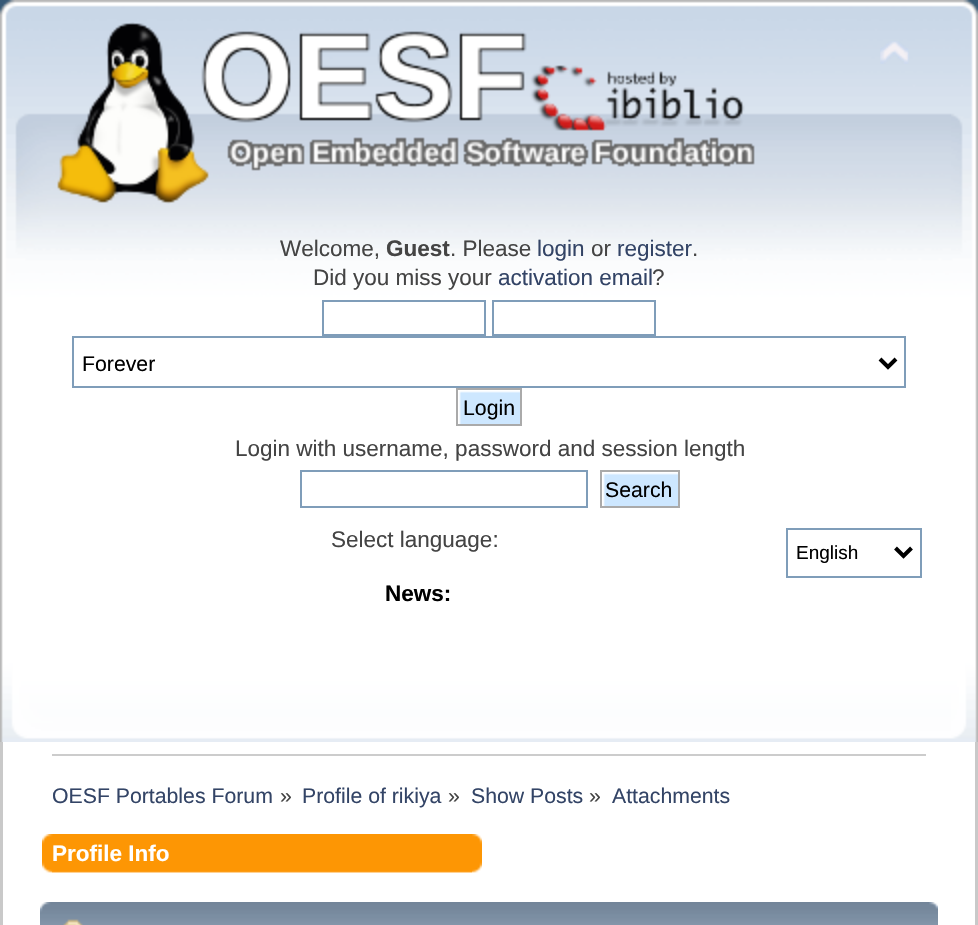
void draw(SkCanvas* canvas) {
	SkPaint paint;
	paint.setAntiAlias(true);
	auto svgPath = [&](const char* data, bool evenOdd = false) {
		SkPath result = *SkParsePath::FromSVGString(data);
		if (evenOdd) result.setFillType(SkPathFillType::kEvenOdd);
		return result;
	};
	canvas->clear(0xffffffff);
	canvas->drawImageRect(SkImages::DeferredFromEncodedData(SkData::MakeFromFileName("img1.png")), SkRect::MakeXYWH(0, 0, 951, 742), SkSamplingOptions());
	canvas->drawImageRect(SkImages::DeferredFromEncodedData(SkData::MakeFromFileName("img2.png")), SkRect::MakeXYWH(951, 0, 27, 742), SkSamplingOptions());
	canvas->drawImageRect(SkImages::DeferredFromEncodedData(SkData::MakeFromFileName("img3.png")), SkRect::MakeXYWH(57, 22, 698, 182), SkSamplingOptions());
	canvas->drawImageRect(SkImages::DeferredFromEncodedData(SkData::MakeFromFileName("img4.png")), SkRect::MakeXYWH(880, 41, 29, 23), SkSamplingOptions());
	SkFont f1(fontMgr->matchFamilyStyle("Liberation Sans", SkFontStyle::Normal()), 22.5);
	f1.setSubpixel(true);
	paint.setColor(0xff444444);
	canvas->drawString("Welcome,", 280, 256, f1, paint);
	SkFont f2(fontMgr->matchFamilyStyle("Liberation Sans", SkFontStyle::Bold()), 22.5);
	f2.setSubpixel(true);
	canvas->drawString("Guest", 386, 256, f2, paint);
	canvas->drawString(". Please", 450, 256, f1, paint);
	paint.setColor(0xff334466);
	canvas->drawString("login", 537, 256, f1, paint);
	paint.setColor(0xff444444);
	canvas->drawString("or", 591, 256, f1, paint);
	paint.setColor(0xff334466);
	canvas->drawString("register", 617, 256, f1, paint);
	paint.setColor(0xff444444);
	canvas->drawString(".", 692, 256, f1, paint);
	canvas->drawString("Did you miss your", 313, 285, f1, paint);
	paint.setColor(0xff334466);
	canvas->drawString("activation email", 498, 285, f1, paint);
	paint.setColor(0xff444444);
	canvas->drawString("?", 652, 285, f1, paint);
	paint.setStroke(true);
	paint.setStrokeWidth(2);
	paint.setColor(0xff7f9db9);
	canvas->drawRect(SkRect::MakeXYWH(323, 301, 162, 34), paint);
	canvas->drawRect(SkRect::MakeXYWH(493, 301, 162, 34), paint);
	canvas->drawRect(SkRect::MakeXYWH(73, 337, 832, 50), paint);
	paint.setStrokeWidth(4);
	paint.setColor(0xff000000);
	canvas->drawPath(svgPath("M880 359L888 367L896 359"), paint);
	SkFont f3(fontMgr->matchFamilyStyle("Liberation Sans", SkFontStyle::Normal()), 21.25);
	f3.setSubpixel(true);
	paint.setStroke(false);
	canvas->drawString("Forever", 82, 371, f3, paint);
	canvas->drawImageRect(SkImages::DeferredFromEncodedData(SkData::MakeFromFileName("img5.png")), SkRect::MakeXYWH(458, 390, 62, 34), SkSamplingOptions());
	paint.setStroke(true);
	paint.setStrokeWidth(2);
	paint.setColor(0xffaaaaaa);
	canvas->drawRect(SkRect::MakeXYWH(457, 389, 64, 36), paint);
	paint.setStroke(false);
	paint.setColor(0xff000000);
	canvas->drawString("Login", 463, 415, f3, paint);
	paint.setColor(0xff444444);
	canvas->drawString("Login with username, password and session length", 235, 456, f1, paint);
	paint.setStroke(true);
	paint.setColor(0xff7f9db9);
	canvas->drawRect(SkRect::MakeXYWH(301, 471, 286, 36), paint);
	canvas->drawImageRect(SkImages::DeferredFromEncodedData(SkData::MakeFromFileName("img6.png")), SkRect::MakeXYWH(602, 472, 76, 34), SkSamplingOptions());
	paint.setColor(0xffaaaaaa);
	canvas->drawRect(SkRect::MakeXYWH(601, 471, 78, 36), paint);
	paint.setStroke(false);
	paint.setColor(0xff000000);
	canvas->drawString("Search", 605, 497, f3, paint);
	paint.setColor(0xff444444);
	canvas->drawString("Select language:", 331, 547, f1, paint);
	paint.setStroke(true);
	paint.setColor(0xff7f9db9);
	canvas->drawRect(SkRect::MakeXYWH(787, 529, 134, 48), paint);
	paint.setStrokeWidth(4);
	paint.setColor(0xff000000);
	canvas->drawPath(svgPath("M895.5 548L903.5 556L911.5 548"), paint);
	SkFont f4(fontMgr->matchFamilyStyle("Liberation Sans", SkFontStyle::Normal()), 19);
	f4.setSubpixel(true);
	paint.setStroke(false);
	canvas->drawString("English", 796, 559, f4, paint);
	canvas->drawString("News:", 385, 601, f2, paint);
	paint.setColor(0xffc9c9c9);
	canvas->drawRect(SkRect::MakeXYWH(0, 742, 3, 183), paint);
	canvas->drawRect(SkRect::MakeXYWH(975, 742, 3, 183), paint);
	paint.setColor(0xffcccccc);
	canvas->drawRect(SkRect::MakeXYWH(52, 754, 874, 2), paint);
	paint.setColor(0xff334466);
	canvas->drawString("OESF Portables Forum", 52, 803, f3, paint);
	paint.setColor(0xff444444);
	canvas->drawString("»", 280, 803, f3, paint);
	paint.setColor(0xff334466);
	canvas->drawString("Profile of rikiya", 302, 803, f3, paint);
	paint.setColor(0xff444444);
	canvas->drawString("»", 448, 803, f3, paint);
	paint.setColor(0xff334466);
	canvas->drawString("Show Posts", 471, 803, f3, paint);
	paint.setColor(0xff444444);
	canvas->drawString("»", 589, 803, f3, paint);
	paint.setColor(0xff334466);
	canvas->drawString("Attachments", 612, 803, f3, paint);
	canvas->drawImageRect(SkImages::DeferredFromEncodedData(SkData::MakeFromFileName("img7.png")), SkRect::MakeXYWH(52, 834, 430, 39), SkSamplingOptions());
	canvas->drawImageRect(SkImages::DeferredFromEncodedData(SkData::MakeFromFileName("img8.png")), SkRect::MakeXYWH(42, 834, 430, 39), SkSamplingOptions());
	paint.setColor(0xffffffff);
	canvas->drawString("Profile Info", 52, 861, f2, paint);
	canvas->drawImageRect(SkImages::DeferredFromEncodedData(SkData::MakeFromFileName("img9.png")), SkRect::MakeXYWH(40, 902, 898, 23), SkSamplingOptions());
	canvas->drawImageRect(SkImages::DeferredFromEncodedData(SkData::MakeFromFileName("img10.png")), SkRect::MakeXYWH(929, 902, 9, 7), SkSamplingOptions());
	canvas->drawImageRect(SkImages::DeferredFromEncodedData(SkData::MakeFromFileName("img11.png")), SkRect::MakeXYWH(63, 919, 20, 6), SkSamplingOptions());
}
